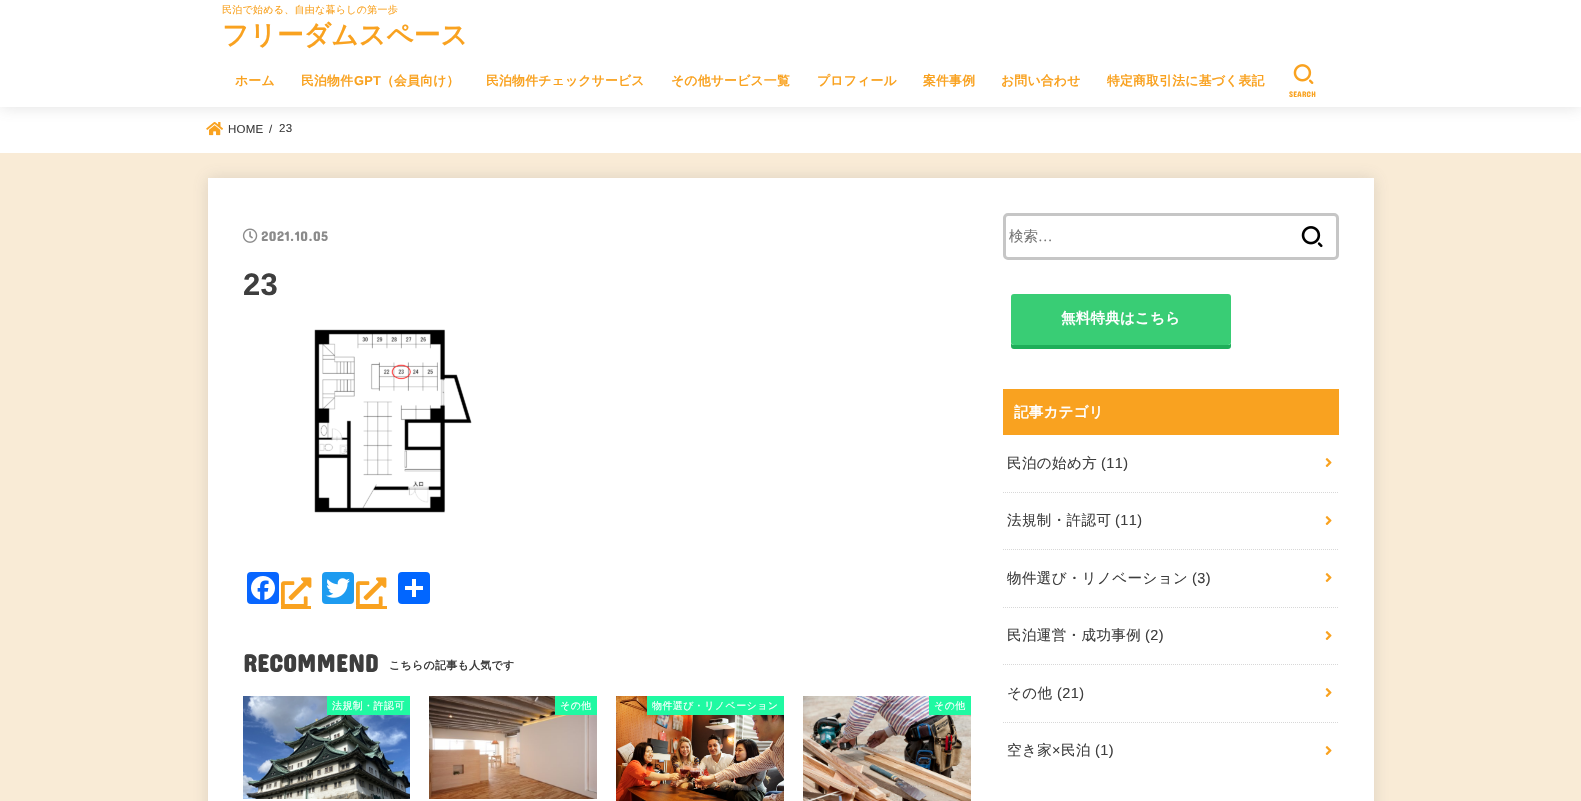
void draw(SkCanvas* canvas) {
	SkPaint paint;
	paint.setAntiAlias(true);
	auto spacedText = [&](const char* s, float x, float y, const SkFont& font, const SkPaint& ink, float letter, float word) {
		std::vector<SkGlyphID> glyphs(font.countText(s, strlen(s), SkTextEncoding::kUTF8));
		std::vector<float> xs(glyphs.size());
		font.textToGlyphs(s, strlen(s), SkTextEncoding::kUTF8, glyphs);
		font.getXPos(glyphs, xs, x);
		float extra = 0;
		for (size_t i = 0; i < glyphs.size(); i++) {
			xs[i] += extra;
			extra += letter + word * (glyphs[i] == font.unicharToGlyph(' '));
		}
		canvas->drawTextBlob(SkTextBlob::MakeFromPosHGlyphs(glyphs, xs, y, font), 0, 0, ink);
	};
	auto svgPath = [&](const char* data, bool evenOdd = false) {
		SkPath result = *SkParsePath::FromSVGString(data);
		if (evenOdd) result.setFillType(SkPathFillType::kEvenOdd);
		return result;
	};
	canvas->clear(0xfff9ebd6);
	paint.setColor(0xffffffff);
	canvas->drawRect(SkRect::MakeXYWH(0, 107, 1581, 46), paint);
	canvas->drawImageRect(SkImages::DeferredFromEncodedData(SkData::MakeFromFileName("img2.png")), SkRect::MakeXYWH(206, 122, 17, 14), SkSamplingOptions());
	paint.setColor(0x33666666);
	paint.setMaskFilter(SkMaskFilter::MakeBlur(kNormal_SkBlurStyle, 7.5));
	canvas->drawRect(SkRect::MakeXYWH(0, 0, 1581, 107), paint);
	paint.setMaskFilter(nullptr);
	paint.setColor(0xffffffff);
	canvas->drawRect(SkRect::MakeXYWH(0, 0, 1581, 107), paint);
	SkFont f1(fontMgr->matchFamilyStyle("WenQuanYi Zen Hei", SkFontStyle(500, SkFontStyle::kNormal_Width, SkFontStyle::kUpright_Slant)), 10);
	f1.setSubpixel(true);
	paint.setColor(0xfff9a220);
	spacedText("民泊で始める、自由な暮らしの第一歩", 222, 13, f1, paint, 0.25, 0);
	SkFont f2(fontMgr->matchFamilyStyle("WenQuanYi Zen Hei", SkFontStyle::Bold()), 26.6);
	f2.setSubpixel(true);
	spacedText("フリーダムスペース", 222, 44, f2, paint, 0.25, 0);
	SkFont f3(fontMgr->matchFamilyStyle("WenQuanYi Zen Hei", SkFontStyle::Bold()), 12.8);
	f3.setSubpixel(true);
	spacedText("ホーム", 235, 85, f3, paint, 0.25, 0);
	spacedText("民泊物件", 301, 85, f3, paint, 0.25, 0);
	SkFont f4(fontMgr->matchFamilyStyle("Liberation Sans", SkFontStyle::Bold()), 12.8);
	f4.setSubpixel(true);
	spacedText("GPT", 354, 85, f4, paint, 0.25, 0);
	spacedText("（会員向け）", 381, 85, f3, paint, 0.25, 0);
	spacedText("民泊物件チェックサービス", 486, 85, f3, paint, 0.25, 0);
	spacedText("その他サービス一覧", 671, 85, f3, paint, 0.25, 0);
	spacedText("プロフィール", 817, 85, f3, paint, 0.25, 0);
	spacedText("案件事例", 923, 85, f3, paint, 0.25, 0);
	spacedText("お問い合わせ", 1001, 85, f3, paint, 0.25, 0);
	spacedText("特定商取引法に基づく表記", 1107, 85, f3, paint, 0.25, 0);
	canvas->drawImageRect(SkImages::DeferredFromEncodedData(SkData::MakeFromFileName("img1.png")), SkRect::MakeXYWH(1293, 64, 21, 20), SkSamplingOptions());
	SkFont f5(fontMgr->matchFamilyStyle("Concert One", SkFontStyle::Normal()), 8);
	f5.setSubpixel(true);
	spacedText("SEARCH", 1289, 97, f5, paint, 0.25, 0);
	SkFont f6(fontMgr->matchFamilyStyle("Liberation Sans", SkFontStyle::Normal()), 11.5);
	f6.setSubpixel(true);
	paint.setColor(0xff3e3e3e);
	spacedText("HOME", 228, 133, f6, paint, 0.25, 0);
	spacedText("/", 269, 133, f6, paint, 0.25, 0);
	spacedText("23", 279, 132, f6, paint, 0.25, 0);
	paint.setColor(0x33666666);
	paint.setMaskFilter(SkMaskFilter::MakeBlur(kNormal_SkBlurStyle, 7.5));
	canvas->drawRect(SkRect::MakeXYWH(208, 178, 1166, 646), paint);
	paint.setMaskFilter(nullptr);
	paint.setColor(0xffffffff);
	canvas->drawRect(SkRect::MakeXYWH(208, 178, 1166, 623), paint);
	canvas->drawImageRect(SkImages::DeferredFromEncodedData(SkData::MakeFromFileName("img3.png")), SkRect::MakeXYWH(242, 228, 16, 15), SkSamplingOptions());
	SkFont f7(fontMgr->matchFamilyStyle("Concert One", SkFontStyle::Normal()), 14);
	f7.setSubpixel(true);
	paint.setColor(0xff8b8b8b);
	spacedText("2021.10.05", 261, 241, f7, paint, 0.4, 0);
	SkFont f8(fontMgr->matchFamilyStyle("Liberation Sans", SkFontStyle::Bold()), 31);
	f8.setSubpixel(true);
	paint.setColor(0xff3e3e3e);
	spacedText("23", 243, 295, f8, paint, 0.25, 0);
	canvas->drawImageRect(SkImages::DeferredFromEncodedData(SkData::MakeFromFileName("img4.png")), SkRect::MakeXYWH(314, 329, 158, 184), SkSamplingOptions());
	paint.setColor(0xff0866ff);
	canvas->drawRoundRect(SkRect::MakeXYWH(247, 572, 32, 32), 4, 4, paint);
	canvas->drawImageRect(SkImages::DeferredFromEncodedData(SkData::MakeFromFileName("img5.png")), SkRect::MakeXYWH(251, 576, 24, 24), SkSamplingOptions());
	canvas->drawImageRect(SkImages::DeferredFromEncodedData(SkData::MakeFromFileName("img6.png")), SkRect::MakeXYWH(281, 577, 31, 29), SkSamplingOptions());
	paint.setColor(0xfff9a220);
	canvas->drawRect(SkRect::MakeXYWH(281, 606, 30, 3), paint);
	paint.setColor(0xff1d9bf0);
	canvas->drawRoundRect(SkRect::MakeXYWH(322, 572, 32, 32), 4, 4, paint);
	canvas->drawImageRect(SkImages::DeferredFromEncodedData(SkData::MakeFromFileName("img7.png")), SkRect::MakeXYWH(326, 578, 24, 20), SkSamplingOptions());
	canvas->drawImageRect(SkImages::DeferredFromEncodedData(SkData::MakeFromFileName("img6.png")), SkRect::MakeXYWH(356, 577, 31, 29), SkSamplingOptions());
	paint.setColor(0xfff9a220);
	canvas->drawRect(SkRect::MakeXYWH(356, 606, 31, 3), paint);
	paint.setColor(0xff0166ff);
	canvas->drawRoundRect(SkRect::MakeXYWH(398, 572, 32, 32), 4, 4, paint);
	paint.setColor(0xffffffff);
	canvas->drawRect(SkRect::MakeXYWH(412, 579, 4, 18), paint);
	canvas->drawRect(SkRect::MakeXYWH(405, 586, 18, 4), paint);
	SkFont f9(fontMgr->matchFamilyStyle("Concert One", SkFontStyle::Bold()), 24.75);
	f9.setSubpixel(true);
	paint.setColor(0xff3e3e3e);
	spacedText("RECOMMEND", 243, 672, f9, paint, 0.25, 0);
	SkFont f10(fontMgr->matchFamilyStyle("WenQuanYi Zen Hei", SkFontStyle::Bold()), 11);
	f10.setSubpixel(true);
	spacedText("こちらの記事も人気です", 389, 669, f10, paint, 0.25, 0);
	canvas->drawImageRect(SkImages::DeferredFromEncodedData(SkData::MakeFromFileName("img8.png")), SkRect::MakeXYWH(243, 696, 167, 103), SkSamplingOptions());
	paint.setColor(0xff20f9a2);
	canvas->drawRect(SkRect::MakeXYWH(327, 696, 83, 19), paint);
	paint.setColor(0xffffffff);
	spacedText("法規制・許認可", 332, 709, f1, paint, 0.4, 0);
	canvas->drawImageRect(SkImages::DeferredFromEncodedData(SkData::MakeFromFileName("img9.png")), SkRect::MakeXYWH(429, 696, 168, 103), SkSamplingOptions());
	paint.setColor(0xff20f9a2);
	canvas->drawRect(SkRect::MakeXYWH(555, 696, 42, 19), paint);
	paint.setColor(0xffffffff);
	spacedText("その他", 560, 709, f1, paint, 0.4, 0);
	canvas->drawImageRect(SkImages::DeferredFromEncodedData(SkData::MakeFromFileName("img10.png")), SkRect::MakeXYWH(616, 696, 168, 105), SkSamplingOptions());
	paint.setColor(0xff20f9a2);
	canvas->drawRect(SkRect::MakeXYWH(647, 696, 137, 19), paint);
	paint.setColor(0xffffffff);
	spacedText("物件選び・リノベーション", 652, 709, f1, paint, 0.4, 0);
	canvas->drawImageRect(SkImages::DeferredFromEncodedData(SkData::MakeFromFileName("img11.png")), SkRect::MakeXYWH(803, 696, 168, 105), SkSamplingOptions());
	paint.setColor(0xff20f9a2);
	canvas->drawRect(SkRect::MakeXYWH(929, 696, 42, 19), paint);
	paint.setColor(0xffffffff);
	spacedText("その他", 934, 709, f1, paint, 0.4, 0);
	paint.setStroke(true);
	paint.setStrokeWidth(3);
	paint.setColor(0xffc6c6c6);
	canvas->drawRoundRect(SkRect::MakeXYWH(1004.5, 214.5, 333, 44), 3.5, 3.5, paint);
	SkFont f11(fontMgr->matchFamilyStyle("WenQuanYi Zen Hei", SkFontStyle(500, SkFontStyle::kNormal_Width, SkFontStyle::kUpright_Slant)), 14.5);
	f11.setSubpixel(true);
	paint.setStroke(false);
	paint.setColor(0xff757575);
	canvas->drawString("検索", 1009, 241, f11, paint);
	SkFont f12(fontMgr->matchFamilyStyle("Liberation Serif", SkFontStyle::Normal()), 14.5);
	f12.setSubpixel(true);
	canvas->drawString("…", 1038, 241, f12, paint);
	canvas->drawImageRect(SkImages::DeferredFromEncodedData(SkData::MakeFromFileName("img12.png")), SkRect::MakeXYWH(1301, 226, 22, 22), SkSamplingOptions());
	paint.setColor(0xff1eae59);
	canvas->drawPath(svgPath("M1011 342V346C1011 348 1012 349 1014 349H1228C1230 349 1231 348 1231 346V342C1231 344 1230 345 1228 345H1014C1012 345 1011 344 1011 342Z"), paint);
	paint.setColor(0xff39cd75);
	canvas->drawRoundRect(SkRect::MakeXYWH(1011, 294, 220, 51), 3, 3, paint);
	SkFont f13(fontMgr->matchFamilyStyle("WenQuanYi Zen Hei", SkFontStyle::Bold()), 14.5);
	f13.setSubpixel(true);
	paint.setColor(0xffffffff);
	spacedText("無料特典はこちら", 1061, 323, f13, paint, 0.25, 0);
	paint.setColor(0xfff9a220);
	canvas->drawRect(SkRect::MakeXYWH(1003, 389, 336, 46), paint);
	paint.setColor(0xffffffff);
	spacedText("記事カテゴリ", 1014, 417, f13, paint, 0.25, 0);
	paint.setStroke(true);
	paint.setStrokeWidth(1);
	paint.setColor(0xffd8d8d8);
	paint.setPathEffect(SkDashPathEffect::Make({{1, 1}}, 0));
	canvas->drawPath(svgPath("M1003 492.5H1339"), paint);
	paint.setPathEffect(nullptr);
	paint.setStroke(false);
	paint.setColor(0xff3e3e3e);
	spacedText("民泊の始め方", 1007, 468, f11, paint, 0.4, 0);
	SkFont f14(fontMgr->matchFamilyStyle("Liberation Sans", SkFontStyle::Normal()), 14.5);
	f14.setSubpixel(true);
	spacedText("(11)", 1101, 468, f14, paint, 0.4, 0);
	canvas->drawImageRect(SkImages::DeferredFromEncodedData(SkData::MakeFromFileName("img13.png")), SkRect::MakeXYWH(1325, 458, 7, 9), SkSamplingOptions());
	paint.setStroke(true);
	paint.setColor(0xffd8d8d8);
	paint.setPathEffect(SkDashPathEffect::Make({{1, 1}}, 0));
	canvas->drawPath(svgPath("M1003 549.5H1339"), paint);
	paint.setPathEffect(nullptr);
	paint.setStroke(false);
	paint.setColor(0xff3e3e3e);
	spacedText("法規制・許認可", 1007, 525, f11, paint, 0.4, 0);
	spacedText("(11)", 1115, 525, f14, paint, 0.4, 0);
	canvas->drawImageRect(SkImages::DeferredFromEncodedData(SkData::MakeFromFileName("img13.png")), SkRect::MakeXYWH(1325, 516, 7, 9), SkSamplingOptions());
	paint.setStroke(true);
	paint.setColor(0xffd8d8d8);
	paint.setPathEffect(SkDashPathEffect::Make({{1, 1}}, 0));
	canvas->drawPath(svgPath("M1003 607.5H1339"), paint);
	paint.setPathEffect(nullptr);
	paint.setStroke(false);
	paint.setColor(0xff3e3e3e);
	spacedText("物件選び・リノベーション", 1007, 583, f11, paint, 0.4, 0);
	spacedText("(3)", 1192, 583, f14, paint, 0.4, 0);
	canvas->drawImageRect(SkImages::DeferredFromEncodedData(SkData::MakeFromFileName("img13.png")), SkRect::MakeXYWH(1325, 573, 7, 9), SkSamplingOptions());
	paint.setStroke(true);
	paint.setColor(0xffd8d8d8);
	paint.setPathEffect(SkDashPathEffect::Make({{1, 1}}, 0));
	canvas->drawPath(svgPath("M1003 664.5H1339"), paint);
	paint.setPathEffect(nullptr);
	paint.setStroke(false);
	paint.setColor(0xff3e3e3e);
	spacedText("民泊運営・成功事例", 1007, 640, f11, paint, 0.4, 0);
	spacedText("(2)", 1145, 640, f14, paint, 0.4, 0);
	canvas->drawImageRect(SkImages::DeferredFromEncodedData(SkData::MakeFromFileName("img13.png")), SkRect::MakeXYWH(1325, 631, 7, 9), SkSamplingOptions());
	paint.setStroke(true);
	paint.setColor(0xffd8d8d8);
	paint.setPathEffect(SkDashPathEffect::Make({{1, 1}}, 0));
	canvas->drawPath(svgPath("M1003 722.5H1339"), paint);
	paint.setPathEffect(nullptr);
	paint.setStroke(false);
	paint.setColor(0xff3e3e3e);
	spacedText("その他", 1007, 698, f11, paint, 0.4, 0);
	spacedText("(21)", 1057, 698, f14, paint, 0.4, 0);
	canvas->drawImageRect(SkImages::DeferredFromEncodedData(SkData::MakeFromFileName("img13.png")), SkRect::MakeXYWH(1325, 688, 7, 9), SkSamplingOptions());
	spacedText("空き家", 1007, 755, f11, paint, 0.4, 0);
	spacedText("×", 1052, 755, f14, paint, 0.4, 0);
	spacedText("民泊", 1061, 755, f11, paint, 0.4, 0);
	spacedText("(1)", 1095, 755, f14, paint, 0.4, 0);
	canvas->drawImageRect(SkImages::DeferredFromEncodedData(SkData::MakeFromFileName("img13.png")), SkRect::MakeXYWH(1325, 746, 7, 9), SkSamplingOptions());
}
